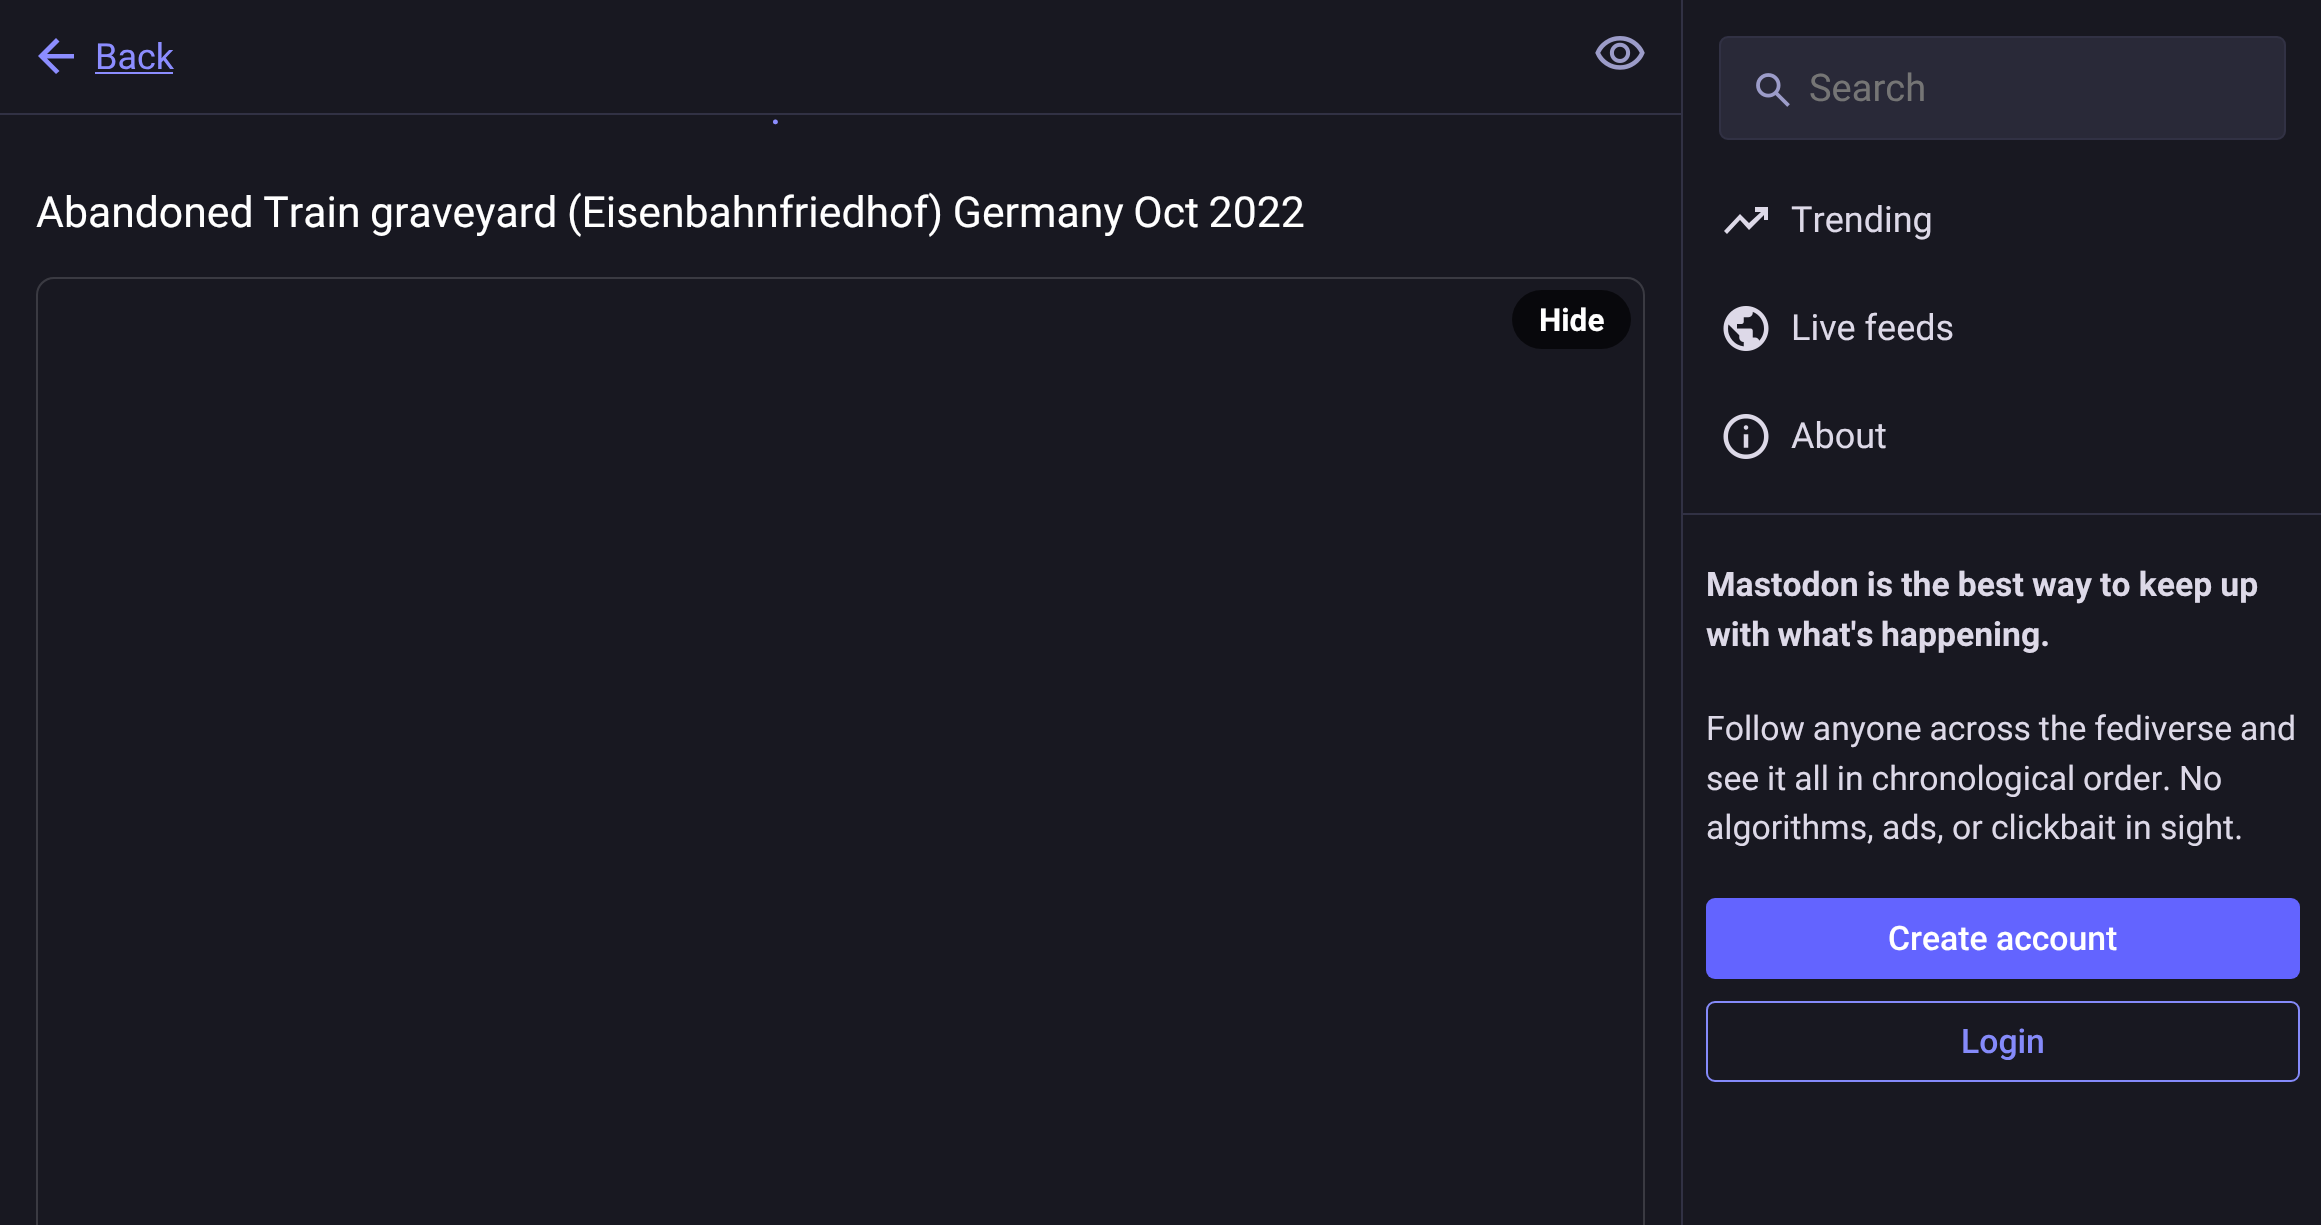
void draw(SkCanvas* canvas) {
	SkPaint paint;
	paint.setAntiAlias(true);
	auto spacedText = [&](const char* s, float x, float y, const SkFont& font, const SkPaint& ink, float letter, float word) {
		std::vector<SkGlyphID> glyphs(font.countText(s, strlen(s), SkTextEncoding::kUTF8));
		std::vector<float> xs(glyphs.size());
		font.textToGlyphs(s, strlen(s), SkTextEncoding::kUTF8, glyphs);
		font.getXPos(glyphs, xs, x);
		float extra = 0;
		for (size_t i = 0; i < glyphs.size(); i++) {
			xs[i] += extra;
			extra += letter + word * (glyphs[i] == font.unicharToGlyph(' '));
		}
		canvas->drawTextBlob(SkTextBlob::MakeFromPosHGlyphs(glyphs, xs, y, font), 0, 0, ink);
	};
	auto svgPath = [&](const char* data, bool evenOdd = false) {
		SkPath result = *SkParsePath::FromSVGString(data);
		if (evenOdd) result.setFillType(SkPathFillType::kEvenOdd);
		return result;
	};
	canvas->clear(0xff181821);
	paint.setColor(0xff313144);
	canvas->drawRect(SkRect::MakeXYWH(0, 113, 1681, 2), paint);
	paint.setColor(0xff8c8dff);
	canvas->drawPath(svgPath("M47 58.5L59.5 71L56 74L38 56L56 38L59.5 41.5L47 54H74V58.5Z"), paint);
	SkFont f1(fontMgr->matchFamilyStyle("Roboto", SkFontStyle::Normal()), 36);
	f1.setSubpixel(true);
	canvas->drawString("Back", 95, 69, f1, paint);
	canvas->drawRect(SkRect::MakeXYWH(95, 72, 78, 2), paint);
	canvas->drawImageRect(SkImages::DeferredFromEncodedData(SkData::MakeFromFileName("img1.png")), SkRect::MakeXYWH(1595, 36, 50, 34), SkSamplingOptions());
	SkFont f2(fontMgr->matchFamilyStyle("Roboto", SkFontStyle::Normal()), 42.75);
	f2.setSubpixel(true);
	canvas->drawString(".", 770, 124, f2, paint);
	paint.setColor(0xffffffff);
	spacedText("Abandoned Train graveyard (Eisenbahnfriedhof) Germany Oct 2022", 36, 227, f2, paint, 0, -1);
	paint.setStroke(true);
	paint.setStrokeWidth(2);
	paint.setColor(0xff3a3a42);
	canvas->drawRoundRect(SkRect::MakeXYWH(37, 278, 1607, 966), 17, 17, paint);
	paint.setStroke(false);
	paint.setColor(0xff08080c);
	canvas->drawRoundRect(SkRect::MakeXYWH(1512, 290, 119, 59), 29.5, 29.5, paint);
	SkFont f3(fontMgr->matchFamilyStyle("Roboto", SkFontStyle::Bold()), 31.5);
	f3.setSubpixel(true);
	paint.setColor(0xffffffff);
	canvas->drawString("Hide", 1539, 331, f3, paint);
	paint.setColor(0xff313144);
	canvas->drawRect(SkRect::MakeXYWH(1681, 0, 2, 1225), paint);
	paint.setColor(0xff292938);
	canvas->drawRoundRect(SkRect::MakeXYWH(1720, 37, 565, 102), 8, 8, paint);
	paint.setStroke(true);
	paint.setColor(0xff313144);
	canvas->drawRoundRect(SkRect::MakeXYWH(1720, 37, 565, 102), 8, 8, paint);
	canvas->drawImageRect(SkImages::DeferredFromEncodedData(SkData::MakeFromFileName("img2.png")), SkRect::MakeXYWH(1756, 73, 34, 34), SkSamplingOptions());
	SkFont f4(fontMgr->matchFamilyStyle("Roboto", SkFontStyle::Normal()), 38);
	f4.setSubpixel(true);
	paint.setStroke(false);
	paint.setColor(0xff757575);
	canvas->drawString("Search", 1809, 101, f4, paint);
	paint.setColor(0xffddd9e8);
	canvas->drawPath(svgPath("M1727 234L1724 231L1740 214L1749 223L1761 212H1755V207H1768V220H1764V215L1749 230L1740 220Z"), paint);
	canvas->drawString("Trending", 1791, 232, f1, paint);
	canvas->drawImageRect(SkImages::DeferredFromEncodedData(SkData::MakeFromFileName("img3.png")), SkRect::MakeXYWH(1723, 306, 46, 45), SkSamplingOptions());
	canvas->drawString("Live feeds", 1791, 340, f1, paint);
	canvas->drawImageRect(SkImages::DeferredFromEncodedData(SkData::MakeFromFileName("img4.png")), SkRect::MakeXYWH(1723, 414, 46, 45), SkSamplingOptions());
	canvas->drawString("About", 1791, 448, f1, paint);
	paint.setColor(0xff313144);
	canvas->drawRect(SkRect::MakeXYWH(1683, 513, 638, 2), paint);
	SkFont f5(fontMgr->matchFamilyStyle("Roboto", SkFontStyle::Bold()), 33.75);
	f5.setSubpixel(true);
	paint.setColor(0xffddd9e8);
	spacedText("Mastodon is the best way to keep up", 1706, 596, f5, paint, 0, -0.25);
	spacedText("with what's happening.", 1706, 646, f5, paint, 0, -1);
	SkFont f6(fontMgr->matchFamilyStyle("Roboto", SkFontStyle::Normal()), 33.75);
	f6.setSubpixel(true);
	spacedText("Follow anyone across the fediverse and", 1706, 740, f6, paint, 0, -0.5);
	spacedText("see it all in chronological order. No", 1706, 790, f6, paint, 0, -0.5);
	canvas->drawString("algorithms, ads, or clickbait in sight.", 1706, 839, f6, paint);
	paint.setColor(0xff6364ff);
	canvas->drawRoundRect(SkRect::MakeXYWH(1706, 898, 594, 81), 9, 9, paint);
	SkFont f7(fontMgr->matchFamilyStyle("Roboto", SkFontStyle(500, SkFontStyle::kNormal_Width, SkFontStyle::kUpright_Slant)), 33.75);
	f7.setSubpixel(true);
	paint.setColor(0xffffffff);
	canvas->drawString("Create account", 1888, 950, f7, paint);
	paint.setStroke(true);
	paint.setColor(0xff858afa);
	canvas->drawRoundRect(SkRect::MakeXYWH(1707, 1002, 592, 79), 8, 8, paint);
	paint.setStroke(false);
	canvas->drawString("Login", 1961, 1053, f7, paint);
}
